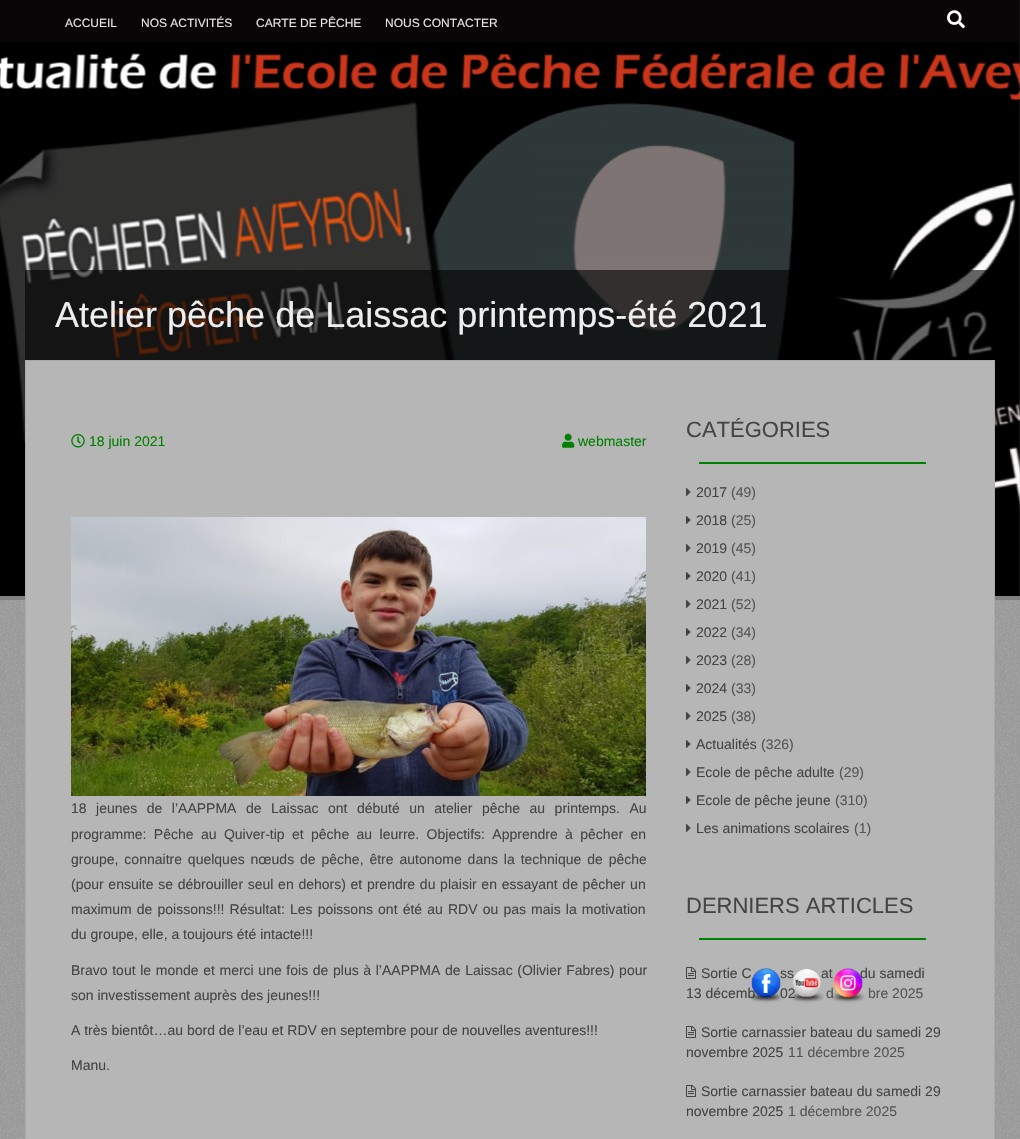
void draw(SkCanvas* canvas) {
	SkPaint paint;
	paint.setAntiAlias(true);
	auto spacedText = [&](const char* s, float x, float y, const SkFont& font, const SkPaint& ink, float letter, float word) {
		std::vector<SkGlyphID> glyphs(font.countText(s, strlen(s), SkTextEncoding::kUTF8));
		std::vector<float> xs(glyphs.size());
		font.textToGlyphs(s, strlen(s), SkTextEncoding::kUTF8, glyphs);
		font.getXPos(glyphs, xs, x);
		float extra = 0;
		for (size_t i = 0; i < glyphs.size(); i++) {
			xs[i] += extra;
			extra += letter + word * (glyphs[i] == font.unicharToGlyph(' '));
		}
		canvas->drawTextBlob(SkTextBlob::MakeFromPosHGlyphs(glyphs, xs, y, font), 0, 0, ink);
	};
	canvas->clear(0xffffffff);
	canvas->drawImageRect(SkImages::DeferredFromEncodedData(SkData::MakeFromFileName("img1.png")), SkRect::MakeXYWH(0, 0, 1020, 1139), SkSamplingOptions());
	canvas->drawImageRect(SkImages::DeferredFromEncodedData(SkData::MakeFromFileName("img2.png")), SkRect::MakeXYWH(0, 0, 1020, 596), SkSamplingOptions());
	paint.setColor(0xff808080);
	canvas->drawRect(SkRect::MakeXYWH(0, 596, 1020, 4), paint);
	paint.setColor(0x66120d0c);
	canvas->drawRect(SkRect::MakeXYWH(0, 0, 1020, 42), paint);
	SkFont f1(fontMgr->matchFamilyStyle("Liberation Sans", SkFontStyle::Normal()), 12);
	f1.setSubpixel(true);
	paint.setColor(0xffe6e6e6);
	canvas->drawString("ACCUEIL", 65, 27, f1, paint);
	canvas->drawString("NOS ACTIVITÉS", 141, 27, f1, paint);
	canvas->drawString("CARTE DE PÊCHE", 256, 27, f1, paint);
	canvas->drawString("NOUS CONTACTER", 385, 27, f1, paint);
	canvas->drawImageRect(SkImages::DeferredFromEncodedData(SkData::MakeFromFileName("img3.png")), SkRect::MakeXYWH(947, 10, 18, 19), SkSamplingOptions());
	paint.setColor(0x99000000);
	canvas->drawRect(SkRect::MakeXYWH(25, 270, 968, 90), paint);
	SkFont f2(fontMgr->matchFamilyStyle("Liberation Sans", SkFontStyle::Normal()), 36);
	f2.setSubpixel(true);
	paint.setColor(0xffeeeeee);
	canvas->drawString("Atelier pêche de Laissac printemps-été 2021", 55, 327, f2, paint);
	paint.setColor(0xffb6b6b6);
	canvas->drawRect(SkRect::MakeXYWH(25.5, 360.5, 969, 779), paint);
	paint.setStroke(true);
	paint.setStrokeWidth(1);
	paint.setColor(0xffaaaaaa);
	canvas->drawRect(SkRect::MakeXYWH(25.5, 360.5, 969, 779), paint);
	canvas->drawImageRect(SkImages::DeferredFromEncodedData(SkData::MakeFromFileName("img4.png")), SkRect::MakeXYWH(71, 434, 14, 14), SkSamplingOptions());
	SkFont f3(fontMgr->matchFamilyStyle("Liberation Sans", SkFontStyle::Normal()), 14);
	f3.setSubpixel(true);
	paint.setStroke(false);
	paint.setColor(0xff008000);
	canvas->drawString("18 juin 2021", 89, 446, f3, paint);
	canvas->drawImageRect(SkImages::DeferredFromEncodedData(SkData::MakeFromFileName("img5.png")), SkRect::MakeXYWH(562, 433, 13, 15), SkSamplingOptions());
	canvas->drawString("webmaster", 578, 446, f3, paint);
	canvas->drawImageRect(SkImages::DeferredFromEncodedData(SkData::MakeFromFileName("img6.png")), SkRect::MakeXYWH(71, 517, 575, 279), SkSamplingOptions());
	paint.setColor(0xff444444);
	spacedText("18 jeunes de l’AAPPMA de Laissac ont débuté un atelier pêche au printemps. Au", 71, 813, f3, paint, 0, 5.6);
	spacedText("programme: Pêche au Quiver-tip et pêche au leurre. Objectifs: Apprendre à pêcher en", 71, 839, f3, paint, 0, 3.5);
	spacedText("groupe, connaitre quelques nœuds de pêche, être autonome dans la technique de pêche", 71, 864, f3, paint, 0, 2);
	spacedText("(pour ensuite se débrouiller seul en dehors) et prendre du plaisir en essayant de pêcher un", 71, 889, f3, paint, 0, 0.8);
	spacedText("maximum de poissons!!! Résultat: Les poissons ont été au RDV ou pas mais la motivation", 71, 914, f3, paint, 0, 1.25);
	canvas->drawString("du groupe, elle, a toujours été intacte!!!", 71, 939, f3, paint);
	spacedText("Bravo tout le monde et merci une fois de plus à l’AAPPMA de Laissac (Olivier Fabres) pour", 71, 975, f3, paint, 0, 0.75);
	canvas->drawString("son investissement auprès des jeunes!!!", 71, 1000, f3, paint);
	canvas->drawString("A très bientôt…au bord de l’eau et RDV en septembre pour de nouvelles aventures!!!", 71, 1035, f3, paint);
	canvas->drawString("Manu.", 71, 1070, f3, paint);
	paint.setColor(0xff008000);
	canvas->drawRect(SkRect::MakeXYWH(699, 462, 227, 2), paint);
	SkFont f4(fontMgr->matchFamilyStyle("Liberation Sans", SkFontStyle::Normal()), 22);
	f4.setSubpixel(true);
	paint.setColor(0xff444444);
	canvas->drawString("CATÉGORIES", 686, 437, f4, paint);
	canvas->drawImageRect(SkImages::DeferredFromEncodedData(SkData::MakeFromFileName("img7.png")), SkRect::MakeXYWH(686, 488, 5, 8), SkSamplingOptions());
	canvas->drawString("2017", 696, 497, f3, paint);
	paint.setColor(0xff555555);
	canvas->drawString("(49)", 731, 497, f3, paint);
	canvas->drawImageRect(SkImages::DeferredFromEncodedData(SkData::MakeFromFileName("img7.png")), SkRect::MakeXYWH(686, 516, 5, 8), SkSamplingOptions());
	paint.setColor(0xff444444);
	canvas->drawString("2018", 696, 525, f3, paint);
	paint.setColor(0xff555555);
	canvas->drawString("(25)", 731, 525, f3, paint);
	canvas->drawImageRect(SkImages::DeferredFromEncodedData(SkData::MakeFromFileName("img7.png")), SkRect::MakeXYWH(686, 544, 5, 8), SkSamplingOptions());
	paint.setColor(0xff444444);
	canvas->drawString("2019", 696, 553, f3, paint);
	paint.setColor(0xff555555);
	canvas->drawString("(45)", 731, 553, f3, paint);
	canvas->drawImageRect(SkImages::DeferredFromEncodedData(SkData::MakeFromFileName("img7.png")), SkRect::MakeXYWH(686, 572, 5, 8), SkSamplingOptions());
	paint.setColor(0xff444444);
	canvas->drawString("2020", 696, 581, f3, paint);
	paint.setColor(0xff555555);
	canvas->drawString("(41)", 731, 581, f3, paint);
	canvas->drawImageRect(SkImages::DeferredFromEncodedData(SkData::MakeFromFileName("img7.png")), SkRect::MakeXYWH(686, 600, 5, 8), SkSamplingOptions());
	paint.setColor(0xff444444);
	canvas->drawString("2021", 696, 609, f3, paint);
	paint.setColor(0xff555555);
	canvas->drawString("(52)", 731, 609, f3, paint);
	canvas->drawImageRect(SkImages::DeferredFromEncodedData(SkData::MakeFromFileName("img7.png")), SkRect::MakeXYWH(686, 628, 5, 8), SkSamplingOptions());
	paint.setColor(0xff444444);
	canvas->drawString("2022", 696, 637, f3, paint);
	paint.setColor(0xff555555);
	canvas->drawString("(34)", 731, 637, f3, paint);
	canvas->drawImageRect(SkImages::DeferredFromEncodedData(SkData::MakeFromFileName("img7.png")), SkRect::MakeXYWH(686, 656, 5, 8), SkSamplingOptions());
	paint.setColor(0xff444444);
	canvas->drawString("2023", 696, 665, f3, paint);
	paint.setColor(0xff555555);
	canvas->drawString("(28)", 731, 665, f3, paint);
	canvas->drawImageRect(SkImages::DeferredFromEncodedData(SkData::MakeFromFileName("img7.png")), SkRect::MakeXYWH(686, 684, 5, 8), SkSamplingOptions());
	paint.setColor(0xff444444);
	canvas->drawString("2024", 696, 693, f3, paint);
	paint.setColor(0xff555555);
	canvas->drawString("(33)", 731, 693, f3, paint);
	canvas->drawImageRect(SkImages::DeferredFromEncodedData(SkData::MakeFromFileName("img7.png")), SkRect::MakeXYWH(686, 712, 5, 8), SkSamplingOptions());
	paint.setColor(0xff444444);
	canvas->drawString("2025", 696, 721, f3, paint);
	paint.setColor(0xff555555);
	canvas->drawString("(38)", 731, 721, f3, paint);
	canvas->drawImageRect(SkImages::DeferredFromEncodedData(SkData::MakeFromFileName("img7.png")), SkRect::MakeXYWH(686, 740, 5, 8), SkSamplingOptions());
	paint.setColor(0xff444444);
	canvas->drawString("Actualités", 696, 749, f3, paint);
	paint.setColor(0xff555555);
	canvas->drawString("(326)", 761, 749, f3, paint);
	canvas->drawImageRect(SkImages::DeferredFromEncodedData(SkData::MakeFromFileName("img7.png")), SkRect::MakeXYWH(686, 768, 5, 8), SkSamplingOptions());
	paint.setColor(0xff444444);
	canvas->drawString("Ecole de pêche adulte", 696, 777, f3, paint);
	paint.setColor(0xff555555);
	canvas->drawString("(29)", 839, 777, f3, paint);
	canvas->drawImageRect(SkImages::DeferredFromEncodedData(SkData::MakeFromFileName("img7.png")), SkRect::MakeXYWH(686, 796, 5, 8), SkSamplingOptions());
	paint.setColor(0xff444444);
	canvas->drawString("Ecole de pêche jeune", 696, 805, f3, paint);
	paint.setColor(0xff555555);
	canvas->drawString("(310)", 835, 805, f3, paint);
	canvas->drawImageRect(SkImages::DeferredFromEncodedData(SkData::MakeFromFileName("img7.png")), SkRect::MakeXYWH(686, 824, 5, 8), SkSamplingOptions());
	paint.setColor(0xff444444);
	canvas->drawString("Les animations scolaires", 696, 833, f3, paint);
	paint.setColor(0xff555555);
	canvas->drawString("(1)", 854, 833, f3, paint);
	paint.setColor(0xff008000);
	canvas->drawRect(SkRect::MakeXYWH(699, 938, 227, 2), paint);
	paint.setColor(0xff444444);
	canvas->drawString("DERNIERS ARTICLES", 686, 913, f4, paint);
	canvas->drawImageRect(SkImages::DeferredFromEncodedData(SkData::MakeFromFileName("img8.png")), SkRect::MakeXYWH(686, 967, 10, 12), SkSamplingOptions());
	canvas->drawString("Sortie C", 701, 978, f3, paint);
	canvas->drawString("ss", 780, 978, f3, paint);
	canvas->drawString("at", 821, 978, f3, paint);
	canvas->drawString("du samedi", 860, 978, f3, paint);
	canvas->drawString("13 décemb", 686, 998, f3, paint);
	canvas->drawString("02", 780, 998, f3, paint);
	paint.setColor(0xff555555);
	canvas->drawString("d", 826, 998, f3, paint);
	canvas->drawString("bre 2025", 868, 998, f3, paint);
	canvas->drawImageRect(SkImages::DeferredFromEncodedData(SkData::MakeFromFileName("img8.png")), SkRect::MakeXYWH(686, 1026, 10, 12), SkSamplingOptions());
	paint.setColor(0xff444444);
	canvas->drawString("Sortie carnassier bateau du samedi 29", 701, 1037, f3, paint);
	canvas->drawString("novembre 2025", 686, 1057, f3, paint);
	paint.setColor(0xff555555);
	canvas->drawString("11 décembre 2025", 788, 1057, f3, paint);
	canvas->drawImageRect(SkImages::DeferredFromEncodedData(SkData::MakeFromFileName("img8.png")), SkRect::MakeXYWH(686, 1085, 10, 12), SkSamplingOptions());
	paint.setColor(0xff444444);
	canvas->drawString("Sortie carnassier bateau du samedi 29", 701, 1096, f3, paint);
	canvas->drawString("novembre 2025", 686, 1116, f3, paint);
	paint.setColor(0xff555555);
	canvas->drawString("1 décembre 2025", 788, 1116, f3, paint);
	canvas->drawImageRect(SkImages::DeferredFromEncodedData(SkData::MakeFromFileName("img9.png")), SkRect::MakeXYWH(749, 968, 35, 35), SkSamplingOptions());
	canvas->drawImageRect(SkImages::DeferredFromEncodedData(SkData::MakeFromFileName("img10.png")), SkRect::MakeXYWH(790, 969, 34, 34), SkSamplingOptions());
	canvas->drawImageRect(SkImages::DeferredFromEncodedData(SkData::MakeFromFileName("img11.png")), SkRect::MakeXYWH(830, 968, 36, 35), SkSamplingOptions());
}
